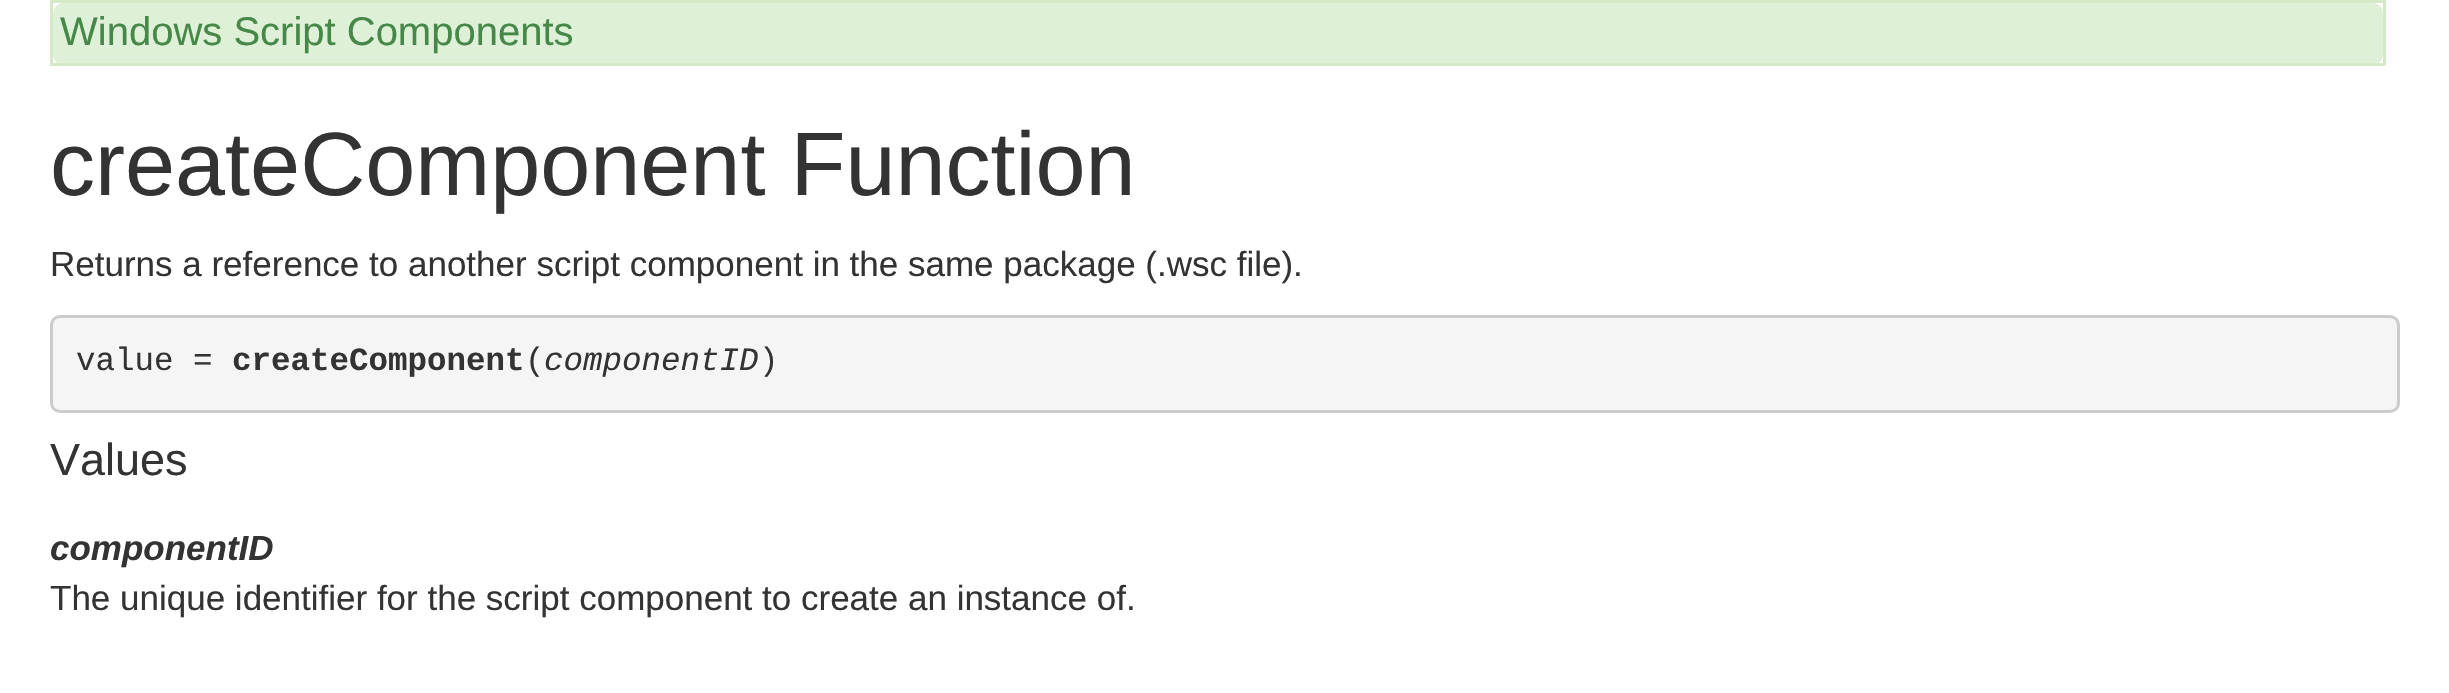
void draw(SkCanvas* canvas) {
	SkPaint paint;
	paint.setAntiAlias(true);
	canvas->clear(0xffffffff);
	paint.setColor(0xffdff0d8);
	canvas->drawRoundRect(SkRect::MakeXYWH(53, 3, 2330, 62), 10, 10, paint);
	paint.setColor(0xffd6e9c6);
	canvas->drawRect(SkRect::MakeXYWH(50, 0, 2335, 3), paint);
	canvas->drawRect(SkRect::MakeXYWH(2383, 0, 3, 65), paint);
	canvas->drawRect(SkRect::MakeXYWH(50, 63, 2335, 3), paint);
	canvas->drawRect(SkRect::MakeXYWH(50, 0, 3, 65), paint);
	SkFont f1(fontMgr->matchFamilyStyle("Liberation Sans", SkFontStyle::Normal()), 40);
	f1.setSubpixel(true);
	paint.setColor(0xff468847);
	canvas->drawString("Windows Script Components", 60, 45, f1, paint);
	SkFont f2(fontMgr->matchFamilyStyle("Liberation Sans", SkFontStyle::Normal()), 90);
	f2.setSubpixel(true);
	paint.setColor(0xff333333);
	canvas->drawString("createComponent Function", 50, 195, f2, paint);
	SkFont f3(fontMgr->matchFamilyStyle("Liberation Sans", SkFontStyle::Normal()), 35);
	f3.setSubpixel(true);
	canvas->drawString("Returns a reference to another script component in the same package (.wsc file).", 50, 276, f3, paint);
	paint.setColor(0xfff5f5f5);
	canvas->drawRoundRect(SkRect::MakeXYWH(51.5, 316.5, 2347, 95), 8.5, 8.5, paint);
	paint.setStroke(true);
	paint.setStrokeWidth(3);
	paint.setColor(0xffcccccc);
	canvas->drawRoundRect(SkRect::MakeXYWH(51.5, 316.5, 2347, 95), 8.5, 8.5, paint);
	SkFont f4(fontMgr->matchFamilyStyle("Liberation Mono", SkFontStyle::Normal()), 32.5);
	f4.setSubpixel(true);
	paint.setStroke(false);
	paint.setColor(0xff333333);
	canvas->drawString("value =", 76, 370, f4, paint);
	SkFont f5(fontMgr->matchFamilyStyle("Liberation Mono", SkFontStyle::Bold()), 32.5);
	f5.setSubpixel(true);
	canvas->drawString("createComponent", 232, 370, f5, paint);
	canvas->drawString("(", 525, 370, f4, paint);
	SkFont f6(fontMgr->matchFamilyStyle("Liberation Mono", SkFontStyle::Italic()), 32.5);
	f6.setSubpixel(true);
	canvas->drawString("componentID", 544, 370, f6, paint);
	canvas->drawString(")", 759, 370, f4, paint);
	SkFont f7(fontMgr->matchFamilyStyle("Liberation Sans", SkFontStyle::Normal()), 45);
	f7.setSubpixel(true);
	canvas->drawString("Values", 50, 475, f7, paint);
	SkFont f8(fontMgr->matchFamilyStyle("Liberation Sans", SkFontStyle::BoldItalic()), 35);
	f8.setSubpixel(true);
	canvas->drawString("componentID", 50, 560, f8, paint);
	canvas->drawString("The unique identifier for the script component to create an instance of.", 50, 610, f3, paint);
}
